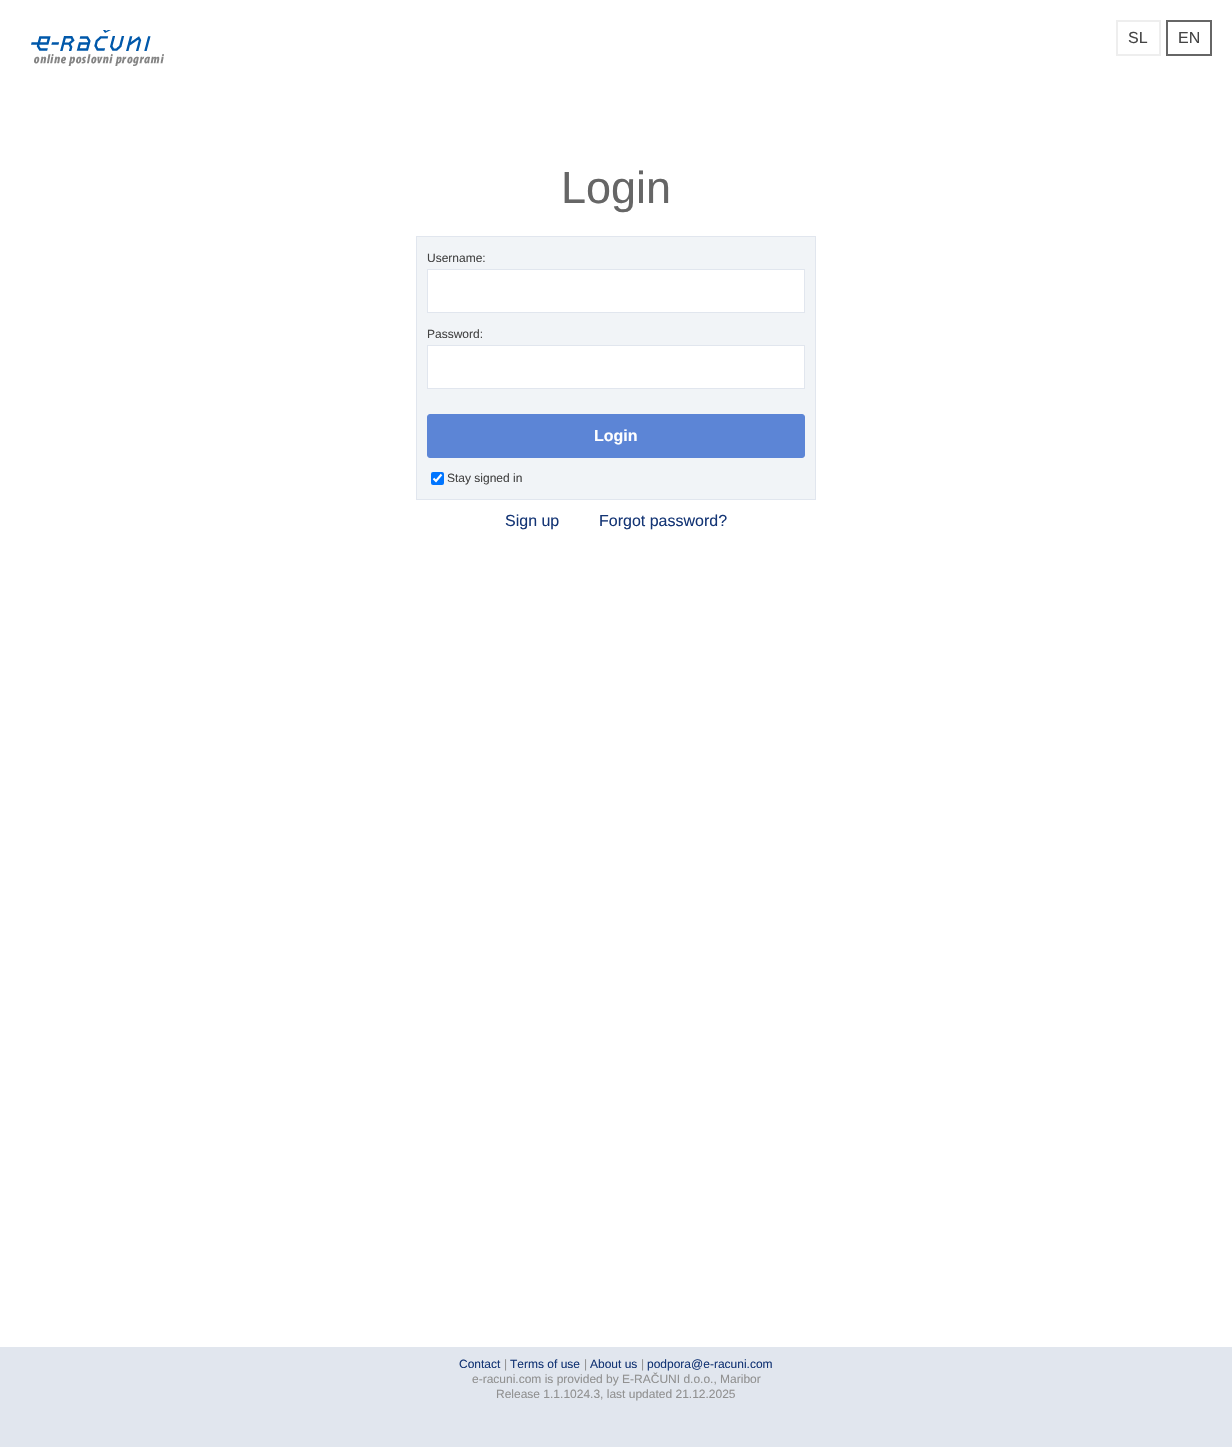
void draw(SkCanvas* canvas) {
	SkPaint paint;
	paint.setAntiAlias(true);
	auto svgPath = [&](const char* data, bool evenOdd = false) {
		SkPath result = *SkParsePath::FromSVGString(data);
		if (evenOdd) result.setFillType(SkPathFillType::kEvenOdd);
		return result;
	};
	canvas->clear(0xffffffff);
	canvas->drawImageRect(SkImages::DeferredFromEncodedData(SkData::MakeFromFileName("img1.png")), SkRect::MakeXYWH(31, 30, 133, 36), SkSamplingOptions());
	paint.setStroke(true);
	paint.setStrokeWidth(2);
	paint.setColor(0xffeeeeee);
	canvas->drawRect(SkRect::MakeXYWH(1117, 21, 43, 34), paint);
	SkFont f1(fontMgr->matchFamilyStyle("Liberation Sans", SkFontStyle::Normal()), 16);
	f1.setSubpixel(true);
	paint.setStroke(false);
	paint.setColor(0xff444444);
	canvas->drawString("SL", 1128, 43, f1, paint);
	paint.setStroke(true);
	paint.setColor(0xff666666);
	canvas->drawRect(SkRect::MakeXYWH(1167, 21, 44, 34), paint);
	paint.setStroke(false);
	paint.setColor(0xff444444);
	canvas->drawString("EN", 1178, 43, f1, paint);
	SkFont f2(fontMgr->matchFamilyStyle("Liberation Sans", SkFontStyle::Normal()), 45);
	f2.setSubpixel(true);
	paint.setColor(0xff666666);
	canvas->drawString("Login", 561, 203, f2, paint);
	paint.setStroke(true);
	paint.setStrokeWidth(1);
	paint.setColor(0xffe1e6ee);
	canvas->drawRect(SkRect::MakeXYWH(416.5, 236.5, 399, 263), paint);
	paint.setStroke(false);
	paint.setColor(0xfff1f4f7);
	canvas->drawRect(SkRect::MakeXYWH(417, 237, 398, 262), paint);
	SkFont f3(fontMgr->matchFamilyStyle("Liberation Sans", SkFontStyle::Normal()), 12);
	f3.setSubpixel(true);
	paint.setColor(0xff444444);
	canvas->drawString("Username:", 427, 262, f3, paint);
	paint.setColor(0xffffffff);
	canvas->drawRect(SkRect::MakeXYWH(427.5, 269.5, 377, 43), paint);
	paint.setStroke(true);
	paint.setColor(0xffe1e6ee);
	canvas->drawRect(SkRect::MakeXYWH(427.5, 269.5, 377, 43), paint);
	paint.setStroke(false);
	paint.setColor(0xff444444);
	canvas->drawString("Password:", 427, 338, f3, paint);
	paint.setColor(0xffffffff);
	canvas->drawRect(SkRect::MakeXYWH(427.5, 345.5, 377, 43), paint);
	paint.setStroke(true);
	paint.setColor(0xffe1e6ee);
	canvas->drawRect(SkRect::MakeXYWH(427.5, 345.5, 377, 43), paint);
	paint.setStroke(false);
	paint.setColor(0xff5c85d6);
	canvas->drawRoundRect(SkRect::MakeXYWH(427.5, 414.5, 377, 43), 2.5, 2.5, paint);
	paint.setStroke(true);
	canvas->drawRoundRect(SkRect::MakeXYWH(427.5, 414.5, 377, 43), 2.5, 2.5, paint);
	SkFont f4(fontMgr->matchFamilyStyle("Liberation Sans", SkFontStyle::Bold()), 16);
	f4.setSubpixel(true);
	paint.setStroke(false);
	paint.setColor(0xffffffff);
	canvas->drawString("Login", 594, 441, f4, paint);
	paint.setColor(0xff0075ff);
	canvas->drawRoundRect(SkRect::MakeXYWH(431, 472, 13, 13), 2, 2, paint);
	paint.setStroke(true);
	paint.setStrokeWidth(2.1);
	paint.setColor(0xffffffff);
	canvas->drawPath(svgPath("M433.5 478.5L436 481L441.5 474.5"), paint);
	paint.setStroke(false);
	paint.setColor(0xff444444);
	canvas->drawString("Stay signed in", 447, 482, f3, paint);
	paint.setColor(0xff143575);
	canvas->drawString("Sign up", 505, 526, f1, paint);
	canvas->drawString("Forgot password?", 599, 526, f1, paint);
	paint.setColor(0xffe1e6ee);
	canvas->drawRect(SkRect::MakeXYWH(0, 1347, 1232, 100), paint);
	paint.setColor(0xff143575);
	canvas->drawString("Contact", 459, 1368, f3, paint);
	paint.setColor(0xff919191);
	canvas->drawString("|", 504, 1368, f3, paint);
	paint.setColor(0xff143575);
	canvas->drawString("Terms of use", 510, 1368, f3, paint);
	paint.setColor(0xff919191);
	canvas->drawString("|", 584, 1368, f3, paint);
	paint.setColor(0xff143575);
	canvas->drawString("About us", 590, 1368, f3, paint);
	paint.setColor(0xff919191);
	canvas->drawString("|", 641, 1368, f3, paint);
	paint.setColor(0xff143575);
	canvas->drawString("podpora@e-racuni.com", 647, 1368, f3, paint);
	paint.setColor(0xff919191);
	canvas->drawString("e-racuni.com is provided by E-RAČUNI d.o.o., Maribor", 472, 1383, f3, paint);
	canvas->drawString("Release 1.1.1024.3, last updated 21.12.2025", 496, 1398, f3, paint);
}
